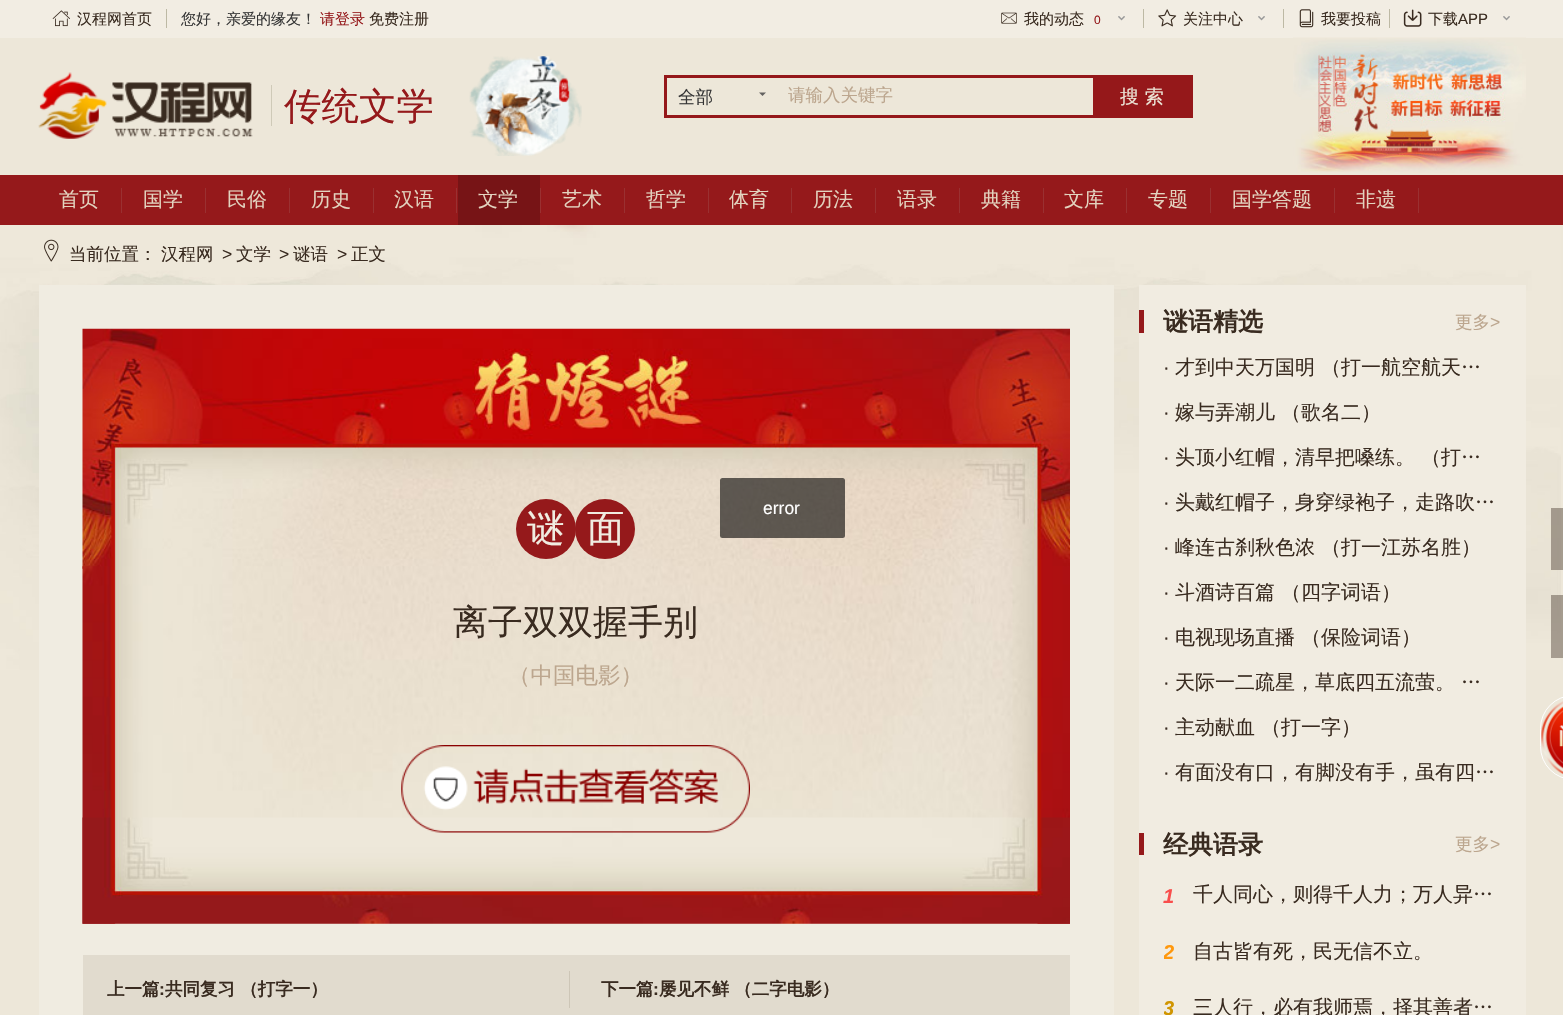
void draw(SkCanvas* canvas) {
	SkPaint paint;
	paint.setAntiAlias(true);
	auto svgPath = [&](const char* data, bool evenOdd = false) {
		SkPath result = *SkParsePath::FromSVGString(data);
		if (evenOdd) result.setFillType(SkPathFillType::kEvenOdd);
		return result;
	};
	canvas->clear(0xffede7d9);
	paint.setColor(0xfff2ede3);
	canvas->drawRect(SkRect::MakeXYWH(0, 0, 1563, 38), paint);
	canvas->drawImageRect(SkImages::DeferredFromEncodedData(SkData::MakeFromFileName("img1.png")), SkRect::MakeXYWH(52, 10, 18, 17), SkSamplingOptions());
	SkFont f1(fontMgr->matchFamilyStyle("WenQuanYi Zen Hei", SkFontStyle(500, SkFontStyle::kNormal_Width, SkFontStyle::kUpright_Slant)), 15);
	f1.setSubpixel(true);
	paint.setColor(0xff392b20);
	canvas->drawString("汉程网首页", 77, 24, f1, paint);
	paint.setColor(0xffbdb9a4);
	canvas->drawRect(SkRect::MakeXYWH(166, 9, 1, 19), paint);
	paint.setColor(0xff363636);
	canvas->drawString("您好，亲爱的缘友！", 181, 24, f1, paint);
	paint.setColor(0xff95191b);
	canvas->drawString("请登录", 320, 24, f1, paint);
	paint.setColor(0xff392b20);
	canvas->drawString("免费注册", 369, 24, f1, paint);
	canvas->drawImageRect(SkImages::DeferredFromEncodedData(SkData::MakeFromFileName("img2.png")), SkRect::MakeXYWH(1001, 12, 16, 12), SkSamplingOptions());
	canvas->drawString("我的动态", 1024, 24, f1, paint);
	SkFont f2(fontMgr->matchFamilyStyle("Liberation Sans", SkFontStyle::Normal()), 12);
	f2.setSubpixel(true);
	paint.setColor(0xff95191b);
	canvas->drawString("0", 1094, 24, f2, paint);
	canvas->drawImageRect(SkImages::DeferredFromEncodedData(SkData::MakeFromFileName("img3.png")), SkRect::MakeXYWH(1118, 16, 7, 5), SkSamplingOptions());
	paint.setColor(0xffbdb9a4);
	canvas->drawRect(SkRect::MakeXYWH(1143, 9, 1, 19), paint);
	canvas->drawImageRect(SkImages::DeferredFromEncodedData(SkData::MakeFromFileName("img4.png")), SkRect::MakeXYWH(1158, 9, 19, 18), SkSamplingOptions());
	paint.setColor(0xff392b20);
	canvas->drawString("关注中心", 1183, 24, f1, paint);
	canvas->drawImageRect(SkImages::DeferredFromEncodedData(SkData::MakeFromFileName("img3.png")), SkRect::MakeXYWH(1258, 16, 7, 5), SkSamplingOptions());
	paint.setColor(0xffbdb9a4);
	canvas->drawRect(SkRect::MakeXYWH(1283, 9, 1, 19), paint);
	canvas->drawImageRect(SkImages::DeferredFromEncodedData(SkData::MakeFromFileName("img5.png")), SkRect::MakeXYWH(1299, 9, 15, 19), SkSamplingOptions());
	paint.setColor(0xff392b20);
	canvas->drawString("我要投稿", 1321, 24, f1, paint);
	paint.setColor(0xffbdb9a4);
	canvas->drawRect(SkRect::MakeXYWH(1389, 9, 1, 19), paint);
	canvas->drawImageRect(SkImages::DeferredFromEncodedData(SkData::MakeFromFileName("img6.png")), SkRect::MakeXYWH(1403, 9, 19, 18), SkSamplingOptions());
	paint.setColor(0xff392b20);
	canvas->drawString("下载", 1428, 24, f1, paint);
	SkFont f3(fontMgr->matchFamilyStyle("Liberation Sans", SkFontStyle::Normal()), 15);
	f3.setSubpixel(true);
	canvas->drawString("APP", 1458, 24, f3, paint);
	canvas->drawImageRect(SkImages::DeferredFromEncodedData(SkData::MakeFromFileName("img3.png")), SkRect::MakeXYWH(1503, 16, 7, 5), SkSamplingOptions());
	canvas->drawImageRect(SkImages::DeferredFromEncodedData(SkData::MakeFromFileName("img7.png")), SkRect::MakeXYWH(38, 72, 215, 67), SkSamplingOptions());
	SkFont f4(fontMgr->matchFamilyStyle("WenQuanYi Zen Hei", SkFontStyle(500, SkFontStyle::kNormal_Width, SkFontStyle::kUpright_Slant)), 37.5);
	f4.setSubpixel(true);
	paint.setColor(0xff95191b);
	canvas->drawString("传统文学", 284, 119, f4, paint);
	paint.setColor(0xffcfcab8);
	canvas->drawRect(SkRect::MakeXYWH(271, 85, 1, 41), paint);
	canvas->drawImageRect(SkImages::DeferredFromEncodedData(SkData::MakeFromFileName("img8.png")), SkRect::MakeXYWH(469, 56, 113, 100), SkSamplingOptions());
	paint.setColor(0xff95181a);
	canvas->drawRect(SkRect::MakeXYWH(664, 75, 429, 3), paint);
	canvas->drawRect(SkRect::MakeXYWH(664, 115, 429, 3), paint);
	canvas->drawRect(SkRect::MakeXYWH(664, 75, 3, 43), paint);
	SkFont f5(fontMgr->matchFamilyStyle("WenQuanYi Zen Hei", SkFontStyle(500, SkFontStyle::kNormal_Width, SkFontStyle::kUpright_Slant)), 17.5);
	f5.setSubpixel(true);
	paint.setColor(0xff363636);
	canvas->drawString("全部", 678, 103, f5, paint);
	paint.setColor(0xff636260);
	canvas->drawPath(svgPath("M759 92.5H766L762.5 96Z"), paint);
	paint.setColor(0xffbca68e);
	canvas->drawString("请输入关键字", 788, 101, f5, paint);
	paint.setColor(0xff95181a);
	canvas->drawRect(SkRect::MakeXYWH(1093, 75, 100, 43), paint);
	SkFont f6(fontMgr->matchFamilyStyle("WenQuanYi Zen Hei", SkFontStyle(500, SkFontStyle::kNormal_Width, SkFontStyle::kUpright_Slant)), 19);
	f6.setSubpixel(true);
	paint.setColor(0xffede7d9);
	canvas->drawString("搜 索", 1120, 103, f6, paint);
	canvas->drawImageRect(SkImages::DeferredFromEncodedData(SkData::MakeFromFileName("img9.png")), SkRect::MakeXYWH(1293, 37, 233, 136), SkSamplingOptions());
	paint.setColor(0xff95191b);
	canvas->drawRect(SkRect::MakeXYWH(0, 175, 1563, 50), paint);
	SkFont f7(fontMgr->matchFamilyStyle("WenQuanYi Zen Hei", SkFontStyle(500, SkFontStyle::kNormal_Width, SkFontStyle::kUpright_Slant)), 20);
	f7.setSubpixel(true);
	paint.setColor(0xffe3d3bf);
	canvas->drawString("首页", 59, 206, f7, paint);
	paint.setColor(0xff9a3031);
	canvas->drawRect(SkRect::MakeXYWH(121, 188, 1, 25), paint);
	paint.setColor(0xffe3d3bf);
	canvas->drawString("国学", 143, 206, f7, paint);
	paint.setColor(0xff9a3031);
	canvas->drawRect(SkRect::MakeXYWH(205, 188, 1, 25), paint);
	paint.setColor(0xffe3d3bf);
	canvas->drawString("民俗", 227, 206, f7, paint);
	paint.setColor(0xff9a3031);
	canvas->drawRect(SkRect::MakeXYWH(289, 188, 1, 25), paint);
	paint.setColor(0xffe3d3bf);
	canvas->drawString("历史", 311, 206, f7, paint);
	paint.setColor(0xff9a3031);
	canvas->drawRect(SkRect::MakeXYWH(373, 188, 1, 25), paint);
	paint.setColor(0xffe3d3bf);
	canvas->drawString("汉语", 394, 206, f7, paint);
	paint.setColor(0xff9a3031);
	canvas->drawRect(SkRect::MakeXYWH(456, 188, 1, 25), paint);
	paint.setColor(0xff771416);
	canvas->drawRect(SkRect::MakeXYWH(458, 175, 82, 50), paint);
	paint.setColor(0xffe3d3bf);
	canvas->drawString("文学", 478, 206, f7, paint);
	paint.setColor(0xff9a3031);
	canvas->drawRect(SkRect::MakeXYWH(540, 188, 1, 25), paint);
	paint.setColor(0xffe3d3bf);
	canvas->drawString("艺术", 562, 206, f7, paint);
	paint.setColor(0xff9a3031);
	canvas->drawRect(SkRect::MakeXYWH(624, 188, 1, 25), paint);
	paint.setColor(0xffe3d3bf);
	canvas->drawString("哲学", 646, 206, f7, paint);
	paint.setColor(0xff9a3031);
	canvas->drawRect(SkRect::MakeXYWH(708, 188, 1, 25), paint);
	paint.setColor(0xffe3d3bf);
	canvas->drawString("体育", 729, 206, f7, paint);
	paint.setColor(0xff9a3031);
	canvas->drawRect(SkRect::MakeXYWH(791, 188, 1, 25), paint);
	paint.setColor(0xffe3d3bf);
	canvas->drawString("历法", 813, 206, f7, paint);
	paint.setColor(0xff9a3031);
	canvas->drawRect(SkRect::MakeXYWH(875, 188, 1, 25), paint);
	paint.setColor(0xffe3d3bf);
	canvas->drawString("语录", 897, 206, f7, paint);
	paint.setColor(0xff9a3031);
	canvas->drawRect(SkRect::MakeXYWH(959, 188, 1, 25), paint);
	paint.setColor(0xffe3d3bf);
	canvas->drawString("典籍", 981, 206, f7, paint);
	paint.setColor(0xff9a3031);
	canvas->drawRect(SkRect::MakeXYWH(1043, 188, 1, 25), paint);
	paint.setColor(0xffe3d3bf);
	canvas->drawString("文库", 1064, 206, f7, paint);
	paint.setColor(0xff9a3031);
	canvas->drawRect(SkRect::MakeXYWH(1126, 188, 1, 25), paint);
	paint.setColor(0xffe3d3bf);
	canvas->drawString("专题", 1148, 206, f7, paint);
	paint.setColor(0xff9a3031);
	canvas->drawRect(SkRect::MakeXYWH(1210, 188, 1, 25), paint);
	paint.setColor(0xffe3d3bf);
	canvas->drawString("国学答题", 1232, 206, f7, paint);
	paint.setColor(0xff9a3031);
	canvas->drawRect(SkRect::MakeXYWH(1334, 188, 1, 25), paint);
	paint.setColor(0xffe3d3bf);
	canvas->drawString("非遗", 1356, 206, f7, paint);
	paint.setColor(0xff9a3031);
	canvas->drawRect(SkRect::MakeXYWH(1418, 188, 1, 25), paint);
	canvas->drawImageRect(SkImages::DeferredFromEncodedData(SkData::MakeFromFileName("img10.png")), SkRect::MakeXYWH(0, 225, 1561, 445), SkSamplingOptions());
	canvas->drawImageRect(SkImages::DeferredFromEncodedData(SkData::MakeFromFileName("img11.png")), SkRect::MakeXYWH(44, 239, 15, 23), SkSamplingOptions());
	paint.setColor(0xff392b20);
	canvas->drawString("当前位置：", 69, 260, f5, paint);
	canvas->drawString("汉程网", 161, 260, f5, paint);
	SkFont f8(fontMgr->matchFamilyStyle("Liberation Sans", SkFontStyle::Normal()), 17.5);
	f8.setSubpixel(true);
	canvas->drawString(">", 222, 260, f8, paint);
	canvas->drawString("文学", 236, 260, f5, paint);
	canvas->drawString(">", 279, 260, f8, paint);
	canvas->drawString("谜语", 293, 260, f5, paint);
	canvas->drawString(">", 337, 260, f8, paint);
	canvas->drawString("正文", 351, 260, f5, paint);
	paint.setColor(0xfff0ece1);
	canvas->drawRect(SkRect::MakeXYWH(39, 285, 1075, 730), paint);
	canvas->drawImageRect(SkImages::DeferredFromEncodedData(SkData::MakeFromFileName("img12.png")), SkRect::MakeXYWH(82, 328, 988, 241), SkSamplingOptions());
	canvas->drawImageRect(SkImages::DeferredFromEncodedData(SkData::MakeFromFileName("img13.png")), SkRect::MakeXYWH(82, 566, 988, 358), SkSamplingOptions());
	canvas->drawImageRect(SkImages::DeferredFromEncodedData(SkData::MakeFromFileName("img14.png")), SkRect::MakeXYWH(82, 817, 988, 107), SkSamplingOptions());
	paint.setColor(0xff95191b);
	canvas->drawCircle(546, 529, 30, paint);
	paint.setColor(0xfff0ece1);
	canvas->drawString("谜", 527, 541, f4, paint);
	paint.setColor(0xff95191b);
	canvas->drawCircle(605, 529, 30, paint);
	paint.setColor(0xfff0ece1);
	canvas->drawString("面", 587, 541, f4, paint);
	SkFont f9(fontMgr->matchFamilyStyle("WenQuanYi Zen Hei", SkFontStyle(500, SkFontStyle::kNormal_Width, SkFontStyle::kUpright_Slant)), 35);
	f9.setSubpixel(true);
	paint.setColor(0xff392b20);
	canvas->drawString("离子双双握手别", 453, 634, f9, paint);
	SkFont f10(fontMgr->matchFamilyStyle("WenQuanYi Zen Hei", SkFontStyle(500, SkFontStyle::kNormal_Width, SkFontStyle::kUpright_Slant)), 22.5);
	f10.setSubpixel(true);
	paint.setColor(0xffbca68e);
	canvas->drawString("（中国电影）", 508, 683, f10, paint);
	canvas->drawImageRect(SkImages::DeferredFromEncodedData(SkData::MakeFromFileName("img15.png")), SkRect::MakeXYWH(401, 745, 349, 88), SkSamplingOptions());
	paint.setColor(0xffe1dbce);
	canvas->drawRect(SkRect::MakeXYWH(83, 955, 987, 60), paint);
	SkFont f11(fontMgr->matchFamilyStyle("WenQuanYi Zen Hei", SkFontStyle::Bold()), 17.5);
	f11.setSubpixel(true);
	paint.setColor(0xff392b20);
	canvas->drawString("上一篇", 107, 995, f11, paint);
	SkFont f12(fontMgr->matchFamilyStyle("Liberation Sans", SkFontStyle::Bold()), 17.5);
	f12.setSubpixel(true);
	canvas->drawString(":", 159, 995, f12, paint);
	canvas->drawString("共同复习 （打字一）", 165, 995, f11, paint);
	paint.setColor(0xffcdc6b7);
	canvas->drawRect(SkRect::MakeXYWH(569, 971, 1, 37), paint);
	paint.setColor(0xff392b20);
	canvas->drawString("下一篇", 601, 995, f11, paint);
	canvas->drawString(":", 653, 995, f12, paint);
	canvas->drawString("屡见不鲜 （二字电影）", 659, 995, f11, paint);
	paint.setColor(0xfff1ece1);
	canvas->drawRect(SkRect::MakeXYWH(1139, 285, 387, 730), paint);
	paint.setColor(0xff95191b);
	canvas->drawRect(SkRect::MakeXYWH(1139, 310, 5, 23), paint);
	SkFont f13(fontMgr->matchFamilyStyle("WenQuanYi Zen Hei", SkFontStyle::Bold()), 25);
	f13.setSubpixel(true);
	paint.setColor(0xff392b20);
	canvas->drawString("谜语精选", 1163, 330, f13, paint);
	paint.setColor(0xffbca68e);
	canvas->drawString("更多", 1455, 328, f5, paint);
	canvas->drawString(">", 1490, 328, f8, paint);
	SkFont f14(fontMgr->matchFamilyStyle("Liberation Sans", SkFontStyle::Normal()), 20);
	f14.setSubpixel(true);
	paint.setColor(0xff392b20);
	canvas->drawString("·", 1163, 374, f14, paint);
	canvas->drawString("才到中天万国明 （打一航空航天…", 1175, 374, f7, paint);
	canvas->drawString("·", 1163, 419, f14, paint);
	canvas->drawString("嫁与弄潮儿 （歌名二）", 1175, 419, f7, paint);
	canvas->drawString("·", 1163, 464, f14, paint);
	canvas->drawString("头顶小红帽，清早把嗓练。 （打…", 1175, 464, f7, paint);
	canvas->drawString("·", 1163, 509, f14, paint);
	canvas->drawString("头戴红帽子，身穿绿袍子，走路吹…", 1175, 509, f7, paint);
	canvas->drawString("·", 1163, 554, f14, paint);
	canvas->drawString("峰连古刹秋色浓 （打一江苏名胜）", 1175, 554, f7, paint);
	canvas->drawString("·", 1163, 599, f14, paint);
	canvas->drawString("斗酒诗百篇 （四字词语）", 1175, 599, f7, paint);
	canvas->drawString("·", 1163, 644, f14, paint);
	canvas->drawString("电视现场直播 （保险词语）", 1175, 644, f7, paint);
	canvas->drawString("·", 1163, 689, f14, paint);
	canvas->drawString("天际一二疏星，草底四五流萤。 …", 1175, 689, f7, paint);
	canvas->drawString("·", 1163, 734, f14, paint);
	canvas->drawString("主动献血 （打一字）", 1175, 734, f7, paint);
	canvas->drawString("·", 1163, 779, f14, paint);
	canvas->drawString("有面没有口，有脚没有手，虽有四…", 1175, 779, f7, paint);
	paint.setColor(0xff95191b);
	canvas->drawRect(SkRect::MakeXYWH(1139, 833, 5, 22), paint);
	paint.setColor(0xff392b20);
	canvas->drawString("经典语录", 1163, 853, f13, paint);
	paint.setColor(0xffbca68e);
	canvas->drawString("更多", 1455, 850, f5, paint);
	canvas->drawString(">", 1490, 850, f8, paint);
	SkFont f15(fontMgr->matchFamilyStyle("Liberation Sans", SkFontStyle::BoldItalic()), 20);
	f15.setSubpixel(true);
	paint.setColor(0xfff94e4c);
	canvas->drawString("1", 1163, 903, f15, paint);
	paint.setColor(0xff392b20);
	canvas->drawString("千人同心，则得千人力；万人异…", 1193, 901, f7, paint);
	canvas->save();
	canvas->clipRect(SkRect::MakeXYWH(1164, 924, 337, 56));
	paint.setColor(0xffff980d);
	canvas->drawString("2", 1163, 959, f15, paint);
	canvas->restore();
	paint.setColor(0xff392b20);
	canvas->drawString("自古皆有死，民无信不立。", 1193, 958, f7, paint);
	canvas->save();
	canvas->clipRect(SkRect::MakeXYWH(1164, 980, 337, 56));
	paint.setColor(0xffd09500);
	canvas->drawString("3", 1163, 1015, f15, paint);
	canvas->restore();
	paint.setColor(0xff392b20);
	canvas->drawString("三人行，必有我师焉，择其善者…", 1193, 1014, f7, paint);
	paint.setColor(0x99000000);
	canvas->drawRoundRect(SkRect::MakeXYWH(720, 478, 125, 60), 2.5, 2.5, paint);
	paint.setColor(0xffffffff);
	canvas->drawString("error", 763, 514, f8, paint);
	paint.setColor(0x66392b20);
	canvas->drawRect(SkRect::MakeXYWH(1551, 508, 12, 62), paint);
	canvas->drawRect(SkRect::MakeXYWH(1551, 595, 12, 63), paint);
	canvas->drawImageRect(SkImages::DeferredFromEncodedData(SkData::MakeFromFileName("img16.png")), SkRect::MakeXYWH(1540, 701, 23, 74), SkSamplingOptions());
	paint.setStroke(true);
	paint.setStrokeWidth(1);
	paint.setColor(0xffffffff);
	canvas->drawRoundRect(SkRect::MakeXYWH(1540.5, 695.5, 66, 84), 42, 42, paint);
}
